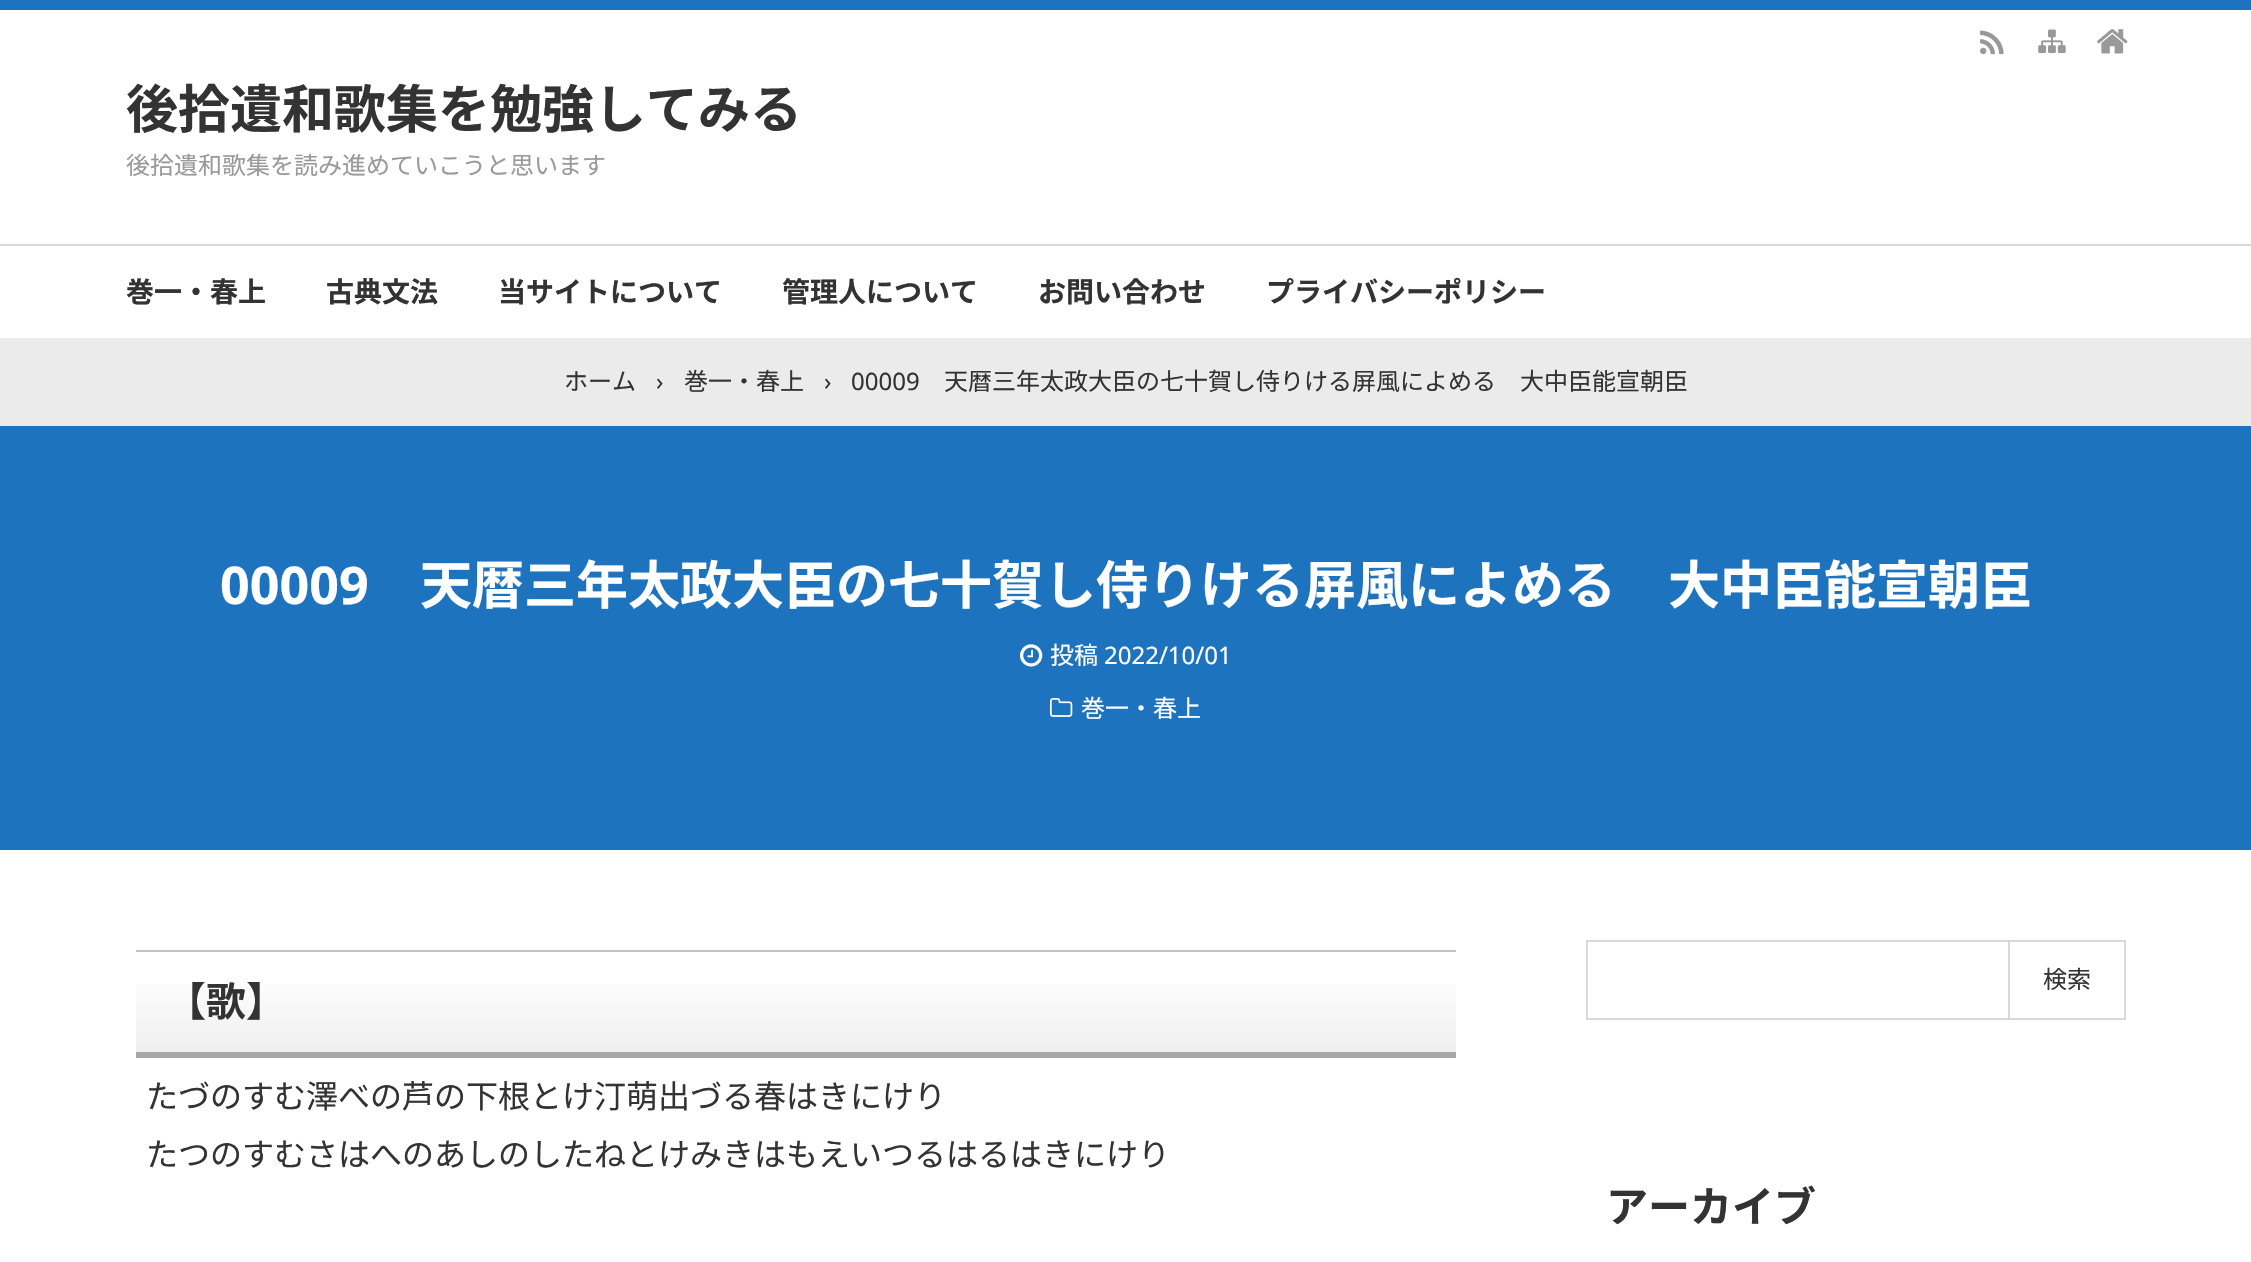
void draw(SkCanvas* canvas) {
	SkPaint paint;
	paint.setAntiAlias(true);
	canvas->clear(0xffffffff);
	paint.setColor(0xff1e73be);
	canvas->drawRect(SkRect::MakeXYWH(0, 0, 2251, 10), paint);
	canvas->drawImageRect(SkImages::DeferredFromEncodedData(SkData::MakeFromFileName("img1.png")), SkRect::MakeXYWH(1980, 30, 24, 25), SkSamplingOptions());
	canvas->drawImageRect(SkImages::DeferredFromEncodedData(SkData::MakeFromFileName("img2.png")), SkRect::MakeXYWH(2038, 29, 28, 25), SkSamplingOptions());
	canvas->drawImageRect(SkImages::DeferredFromEncodedData(SkData::MakeFromFileName("img3.png")), SkRect::MakeXYWH(2097, 29, 31, 25), SkSamplingOptions());
	SkFont f1(fontMgr->matchFamilyStyle("Noto Sans CJK JP", SkFontStyle::Bold()), 52);
	f1.setSubpixel(true);
	paint.setColor(0xff333333);
	canvas->drawString("後拾遺和歌集を勉強してみる", 126, 128, f1, paint);
	SkFont f2(fontMgr->matchFamilyStyle("Noto Sans CJK JP", SkFontStyle::Normal()), 24);
	f2.setSubpixel(true);
	paint.setColor(0xff999999);
	canvas->drawString("後拾遺和歌集を読み進めていこうと思います", 126, 174, f2, paint);
	paint.setColor(0xffd9d9d9);
	canvas->drawRect(SkRect::MakeXYWH(0, 244, 2251, 2), paint);
	SkFont f3(fontMgr->matchFamilyStyle("Noto Sans CJK JP", SkFontStyle::Bold()), 28);
	f3.setSubpixel(true);
	paint.setColor(0xff333333);
	canvas->drawString("巻一・春上", 126, 302, f3, paint);
	canvas->drawString("古典文法", 326, 302, f3, paint);
	canvas->drawString("当サイトについて", 498, 302, f3, paint);
	canvas->drawString("管理人について", 782, 302, f3, paint);
	canvas->drawString("お問い合わせ", 1038, 302, f3, paint);
	canvas->drawString("プライバシーポリシー", 1266, 302, f3, paint);
	paint.setColor(0xffebebeb);
	canvas->drawRect(SkRect::MakeXYWH(0, 338, 2251, 88), paint);
	paint.setColor(0xff333333);
	canvas->drawString("ホーム", 564, 390, f2, paint);
	SkFont f4(fontMgr->matchFamilyStyle("Noto Sans", SkFontStyle::Normal()), 24);
	f4.setSubpixel(true);
	canvas->drawString("›", 656, 390, f4, paint);
	canvas->drawString("巻一・春上", 684, 390, f2, paint);
	canvas->drawString("›", 824, 390, f4, paint);
	canvas->drawString("00009", 851, 390, f4, paint);
	canvas->drawString("天暦三年太政大臣の七十賀し侍りける屏風によめる　大中臣能宣朝臣", 944, 390, f2, paint);
	paint.setColor(0xff1e73be);
	canvas->drawRect(SkRect::MakeXYWH(0, 426, 2251, 424), paint);
	SkFont f5(fontMgr->matchFamilyStyle("Noto Sans", SkFontStyle::Bold()), 52);
	f5.setSubpixel(true);
	paint.setColor(0xffffffff);
	canvas->drawString("00009", 220, 604, f5, paint);
	canvas->drawString("天暦三年太政大臣の七十賀し侍りける屏風によめる　大中臣能宣朝臣", 420, 604, f1, paint);
	canvas->drawImageRect(SkImages::DeferredFromEncodedData(SkData::MakeFromFileName("img4.png")), SkRect::MakeXYWH(1020, 644, 23, 23), SkSamplingOptions());
	canvas->drawString("投稿", 1050, 664, f2, paint);
	canvas->drawString("2022/10/01", 1104, 664, f4, paint);
	canvas->drawImageRect(SkImages::DeferredFromEncodedData(SkData::MakeFromFileName("img5.png")), SkRect::MakeXYWH(1050, 698, 23, 19), SkSamplingOptions());
	canvas->drawString("巻一・春上", 1081, 717, f2, paint);
	{
		const SkColor colors[] = {0xffffffff, 0xffeeeeee};
		const float stops[] = {0.2, 1};
		const SkPoint ends[] = {{796, 952}, {796, 1052}};
		paint.setShader(SkGradientShader::MakeLinear(ends, colors, stops, 2, SkTileMode::kClamp));
		paint.setAlpha(255);
	}
	canvas->drawRect(SkRect::MakeXYWH(136, 984, 1320, 68), paint);
	paint.setShader(nullptr);
	paint.setColor(0xffc0c0c0);
	canvas->drawRect(SkRect::MakeXYWH(136, 950, 1320, 2), paint);
	paint.setColor(0xffa7a7a7);
	canvas->drawRect(SkRect::MakeXYWH(136, 1052, 1320, 6), paint);
	SkFont f6(fontMgr->matchFamilyStyle("Noto Sans CJK JP", SkFontStyle::Bold()), 40);
	f6.setSubpixel(true);
	paint.setColor(0xff333333);
	canvas->drawString("【歌】", 166, 1016, f6, paint);
	SkFont f7(fontMgr->matchFamilyStyle("Noto Sans CJK JP", SkFontStyle::Normal()), 32);
	f7.setSubpixel(true);
	canvas->drawString("たづのすむ澤べの芦の下根とけ汀萌出づる春はきにけり", 146, 1108, f7, paint);
	canvas->drawString("たつのすむさはへのあしのしたねとけみきはもえいつるはるはきにけり", 146, 1166, f7, paint);
	paint.setColor(0xffd9d9d9);
	canvas->drawRect(SkRect::MakeXYWH(1586, 940, 422, 2), paint);
	canvas->drawRect(SkRect::MakeXYWH(1586, 1018, 422, 2), paint);
	canvas->drawRect(SkRect::MakeXYWH(1586, 940, 2, 80), paint);
	paint.setStroke(true);
	paint.setStrokeWidth(2);
	canvas->drawRect(SkRect::MakeXYWH(2009, 941, 116, 78), paint);
	paint.setStroke(false);
	paint.setColor(0xff333333);
	canvas->drawString("検索", 2043, 988, f2, paint);
	SkFont f8(fontMgr->matchFamilyStyle("Noto Sans CJK JP", SkFontStyle::Bold()), 42);
	f8.setSubpixel(true);
	canvas->drawString("アーカイブ", 1606, 1222, f8, paint);
}
